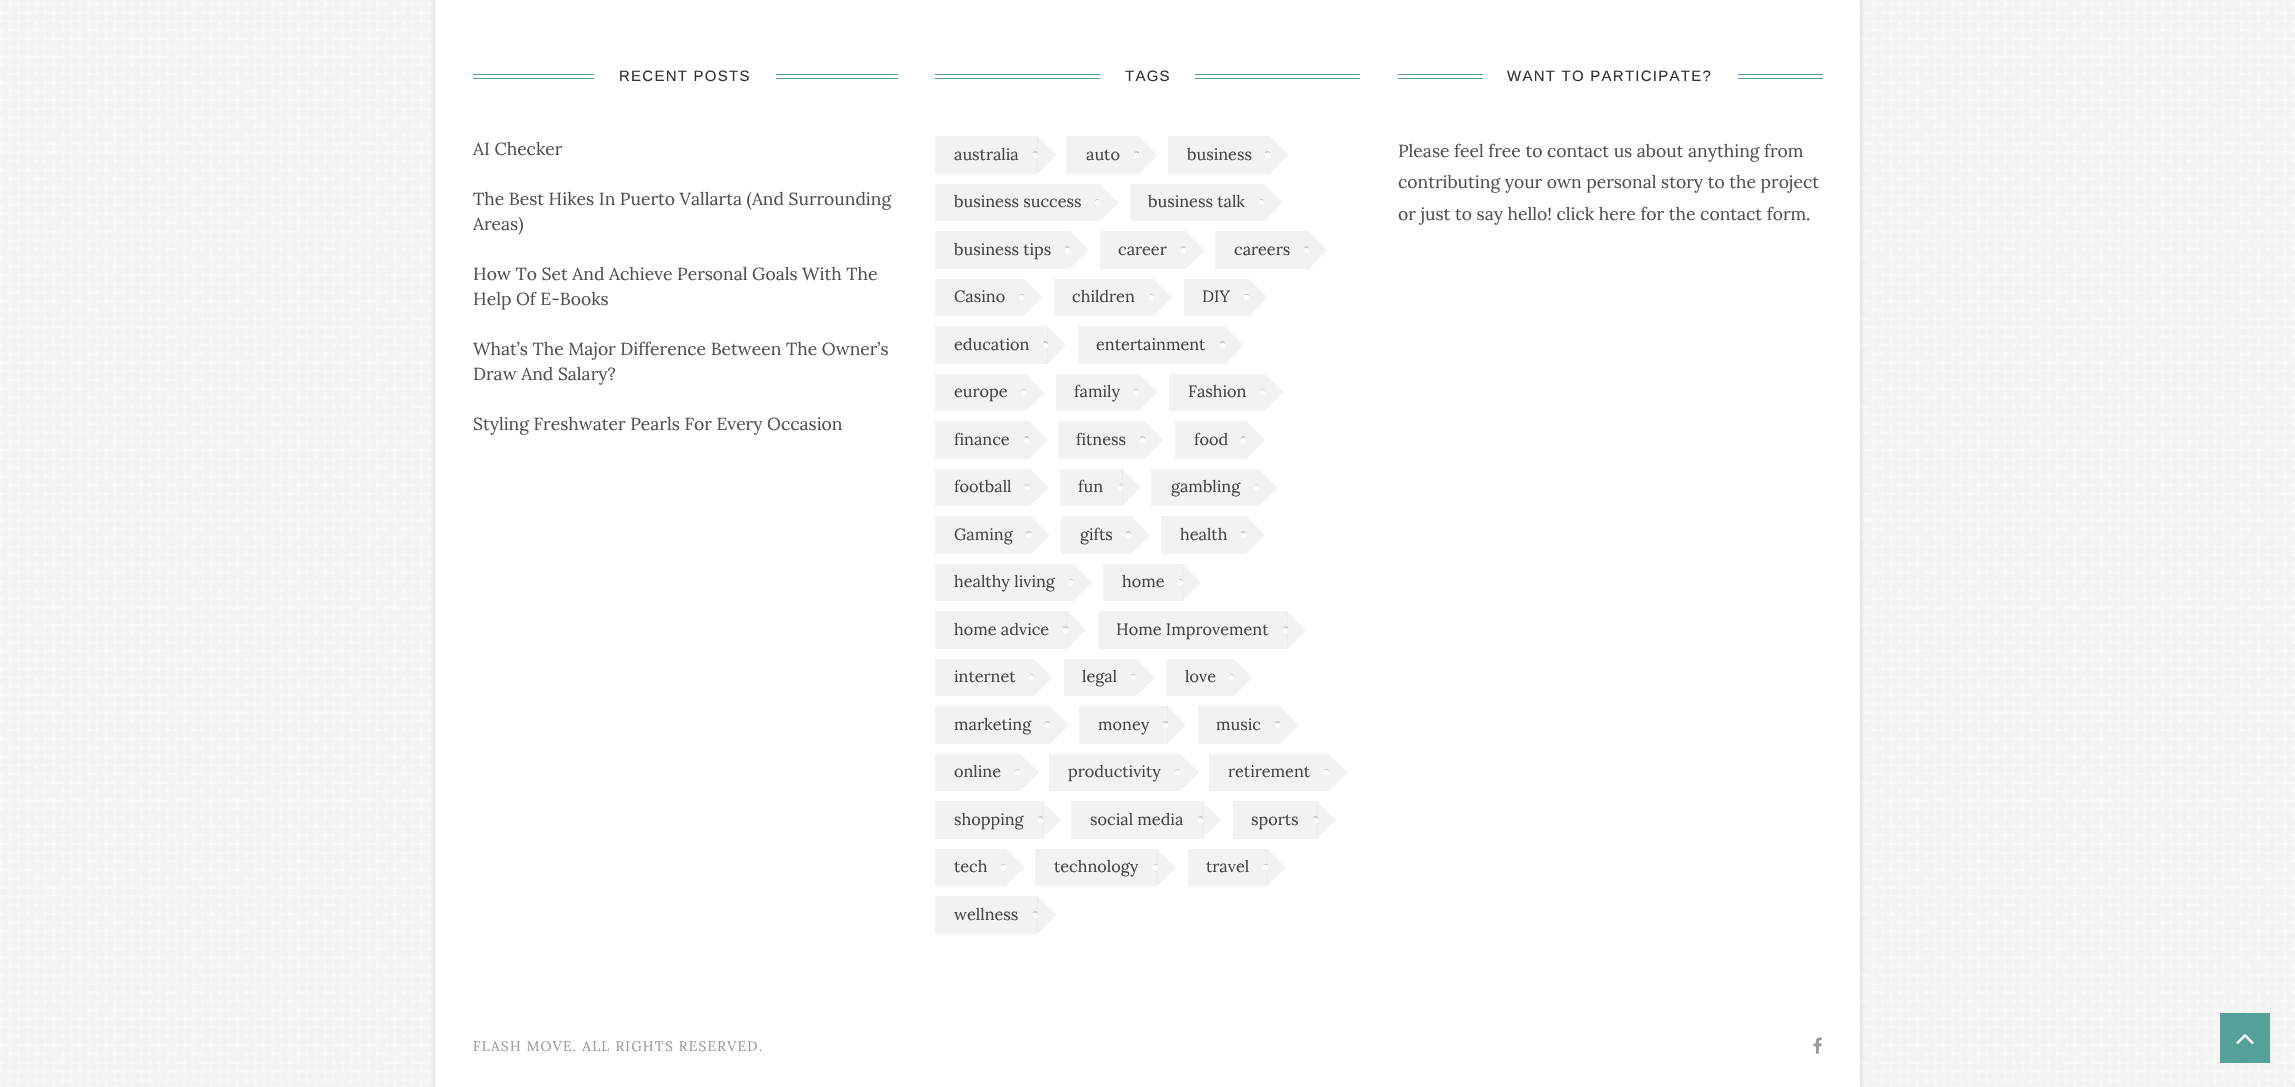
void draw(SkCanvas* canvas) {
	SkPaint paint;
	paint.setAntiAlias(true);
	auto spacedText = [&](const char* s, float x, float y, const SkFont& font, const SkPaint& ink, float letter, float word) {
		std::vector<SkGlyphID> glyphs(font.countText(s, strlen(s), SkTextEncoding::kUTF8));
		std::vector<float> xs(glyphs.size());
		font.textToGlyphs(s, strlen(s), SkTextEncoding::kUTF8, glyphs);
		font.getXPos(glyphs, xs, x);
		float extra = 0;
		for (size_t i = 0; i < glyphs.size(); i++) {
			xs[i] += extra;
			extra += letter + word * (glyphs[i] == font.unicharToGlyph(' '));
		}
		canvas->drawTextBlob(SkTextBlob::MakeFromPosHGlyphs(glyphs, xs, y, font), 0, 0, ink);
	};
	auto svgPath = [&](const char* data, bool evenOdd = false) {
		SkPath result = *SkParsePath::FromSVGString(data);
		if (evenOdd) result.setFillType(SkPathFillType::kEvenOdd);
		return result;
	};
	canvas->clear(0xffffffff);
	canvas->drawImageRect(SkImages::DeferredFromEncodedData(SkData::MakeFromFileName("img1.png")), SkRect::MakeXYWH(0, 0, 2295, 1087), SkSamplingOptions());
	paint.setColor(0x4d818181);
	paint.setMaskFilter(SkMaskFilter::MakeBlur(kNormal_SkBlurStyle, 3));
	canvas->drawRect(SkRect::MakeXYWH(435, -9, 1425, 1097), paint);
	paint.setMaskFilter(nullptr);
	paint.setColor(0xffffffff);
	canvas->drawRect(SkRect::MakeXYWH(435, 0, 1425, 1087), paint);
	paint.setColor(0xff55a098);
	canvas->drawRect(SkRect::MakeXYWH(473, 74, 425, 1), paint);
	canvas->drawRect(SkRect::MakeXYWH(473, 78, 425, 1), paint);
	paint.setColor(0xffffffff);
	canvas->drawRect(SkRect::MakeXYWH(594, 74, 182, 5), paint);
	SkFont f1(fontMgr->matchFamilyStyle("Liberation Sans", SkFontStyle::Normal()), 15);
	f1.setSubpixel(true);
	paint.setColor(0xff313131);
	spacedText("RECENT POSTS", 619, 81, f1, paint, 1.25, 0);
	SkFont f2(fontMgr->matchFamilyStyle("Lora", SkFontStyle::Normal()), 17.5);
	f2.setSubpixel(true);
	paint.setColor(0xff505050);
	canvas->drawString("AI Checker", 473, 155, f2, paint);
	canvas->drawString("The Best Hikes In Puerto Vallarta (And Surrounding", 473, 205, f2, paint);
	canvas->drawString("Areas)", 473, 230, f2, paint);
	canvas->drawString("How To Set And Achieve Personal Goals With The", 473, 280, f2, paint);
	canvas->drawString("Help Of E-Books", 473, 305, f2, paint);
	canvas->drawString("What’s The Major Difference Between The Owner’s", 473, 355, f2, paint);
	canvas->drawString("Draw And Salary?", 473, 380, f2, paint);
	canvas->drawString("Styling Freshwater Pearls For Every Occasion", 473, 430, f2, paint);
	paint.setColor(0xff55a098);
	canvas->drawRect(SkRect::MakeXYWH(935, 74, 425, 1), paint);
	canvas->drawRect(SkRect::MakeXYWH(935, 78, 425, 1), paint);
	paint.setColor(0xffffffff);
	canvas->drawRect(SkRect::MakeXYWH(1100, 74, 95, 5), paint);
	paint.setColor(0xff313131);
	spacedText("TAGS", 1125, 81, f1, paint, 1.25, 0);
	paint.setColor(0xfff2f2f2);
	canvas->drawRect(SkRect::MakeXYWH(935, 136, 103, 38), paint);
	SkFont f3(fontMgr->matchFamilyStyle("Lora", SkFontStyle::Normal()), 16.25);
	f3.setSubpixel(true);
	paint.setColor(0xff444444);
	canvas->drawString("australia", 954, 160, f3, paint);
	paint.setColor(0x0d000000);
	canvas->drawPath(svgPath("M1037.5 174V136L1056 155Z"), paint);
	paint.setColor(0x4dffffff);
	canvas->drawPath(svgPath("M1033 156.5C1033 161 1040 158.5 1037.5 155C1037.5 157.5 1034.5 158.5 1033 156.5Z"), paint);
	paint.setColor(0x809a9a9a);
	canvas->drawPath(svgPath("M1035.5 151C1034 151 1033 152 1033 153.5C1034.5 151.5 1037.5 152.5 1037.5 155C1038.5 153.5 1037.5 151 1035.5 151Z"), paint);
	paint.setColor(0xffffffff);
	canvas->drawCircle(1035.5, 155.5, 2.5, paint);
	paint.setColor(0xfff2f2f2);
	canvas->drawRect(SkRect::MakeXYWH(1066, 136, 73, 38), paint);
	paint.setColor(0xff444444);
	canvas->drawString("auto", 1086, 160, f3, paint);
	paint.setColor(0xfff6f6f6);
	canvas->drawPath(svgPath("M1134 156C1133.5 160.5 1140.5 159 1138.5 155.5C1138.5 157.5 1135 158 1134 156Z"), paint);
	paint.setColor(0xffc6c6c6);
	canvas->drawPath(svgPath("M1136.5 151C1135 151 1134 152.5 1134 154C1135 152 1138.5 152.5 1138.5 154.5C1139.5 153 1138.5 151 1136.5 151Z"), paint);
	paint.setColor(0xffffffff);
	canvas->drawCircle(1136.5, 155.5, 2.5, paint);
	paint.setColor(0xfff2f2f2);
	canvas->drawPath(svgPath("M1139 174V136L1157.5 155Z"), paint);
	canvas->drawRect(SkRect::MakeXYWH(1168, 136, 102, 38), paint);
	paint.setColor(0xff444444);
	canvas->drawString("business", 1187, 160, f3, paint);
	paint.setColor(0xfff2f2f2);
	canvas->drawPath(svgPath("M1270 174V136L1289 155Z"), paint);
	paint.setColor(0xfff6f6f6);
	canvas->drawPath(svgPath("M1265 156C1264 160 1271 160 1270 156C1269 158 1266 158 1265 156Z"), paint);
	paint.setColor(0xffc6c6c6);
	canvas->drawPath(svgPath("M1267.5 151C1266 151 1264.5 152.5 1265 154C1266 152 1269 152 1270 154C1270.5 152.5 1269 151 1267.5 151Z"), paint);
	paint.setColor(0xffffffff);
	canvas->drawCircle(1267.5, 155.5, 2.5, paint);
	paint.setColor(0xfff2f2f2);
	canvas->drawRect(SkRect::MakeXYWH(935, 184, 165, 37), paint);
	paint.setColor(0xff444444);
	canvas->drawString("business success", 954, 207, f3, paint);
	paint.setColor(0xfff6f6f6);
	canvas->drawPath(svgPath("M1095 203C1094.5 207 1100.5 207 1100 203C1099.5 205.5 1095.5 205.5 1095 203Z"), paint);
	paint.setColor(0xfff2f2f2);
	canvas->drawPath(svgPath("M1100 221V184L1119 202.5Z"), paint);
	paint.setColor(0xffc6c6c6);
	canvas->drawPath(svgPath("M1097.5 199C1096 199 1094.5 200.5 1095 202C1095.5 199.5 1099.5 199.5 1100 202C1100.5 200.5 1099 199 1097.5 199Z"), paint);
	paint.setColor(0xffffffff);
	canvas->drawCircle(1097.5, 202.5, 2.5, paint);
	paint.setColor(0xfff2f2f2);
	canvas->drawRect(SkRect::MakeXYWH(1130, 184, 134, 37), paint);
	paint.setColor(0xff444444);
	canvas->drawString("business talk", 1148, 207, f3, paint);
	paint.setColor(0xfff6f6f6);
	canvas->drawPath(svgPath("M1259 203.5C1259 207.5 1265.5 206 1263.5 202.5C1264 205 1260 206 1259 203.5Z"), paint);
	paint.setColor(0xffc6c6c6);
	canvas->drawPath(svgPath("M1261.5 199C1260 199 1259 200 1259 201.5C1260 199 1264 200 1263.5 202.5C1264.5 201 1263.5 199 1261.5 199Z"), paint);
	paint.setColor(0xffffffff);
	canvas->drawCircle(1261.5, 202.5, 2.5, paint);
	paint.setColor(0xfff2f2f2);
	canvas->drawPath(svgPath("M1264 221V184L1282.5 202.5Z"), paint);
	canvas->drawRect(SkRect::MakeXYWH(935, 231, 135, 38), paint);
	paint.setColor(0xff444444);
	canvas->drawString("business tips", 954, 255, f3, paint);
	paint.setColor(0xfff2f2f2);
	canvas->drawPath(svgPath("M1070 269V231L1089 250Z"), paint);
	paint.setColor(0xfff6f6f6);
	canvas->drawPath(svgPath("M1065 251C1064 255 1071 255 1070 251C1069 253 1066 253 1065 251Z"), paint);
	paint.setColor(0xffc6c6c6);
	canvas->drawPath(svgPath("M1067.5 246C1066 246 1064.5 247.5 1065 249C1066 247 1069 247 1070 249C1070.5 247.5 1069 246 1067.5 246Z"), paint);
	paint.setColor(0xffffffff);
	canvas->drawCircle(1067.5, 250.5, 2.5, paint);
	paint.setColor(0xfff2f2f2);
	canvas->drawRect(SkRect::MakeXYWH(1100, 231, 86, 38), paint);
	paint.setColor(0xff444444);
	canvas->drawString("career", 1118, 255, f3, paint);
	paint.setColor(0xfff2f2f2);
	canvas->drawPath(svgPath("M1186 269V231L1205 250Z"), paint);
	paint.setColor(0xfff6f6f6);
	canvas->drawPath(svgPath("M1181.5 250.5C1179.5 254 1186.5 255.5 1186 251C1185 253 1181.5 252.5 1181.5 250.5Z"), paint);
	paint.setColor(0xffc6c6c6);
	canvas->drawPath(svgPath("M1183.5 246C1181.5 246 1180.5 248 1181.5 249.5C1181.5 247.5 1185 247 1186 249C1186 247.5 1185 246 1183.5 246Z"), paint);
	paint.setColor(0xffffffff);
	canvas->drawCircle(1183.5, 250.5, 2.5, paint);
	paint.setColor(0xfff2f2f2);
	canvas->drawRect(SkRect::MakeXYWH(1215, 231, 94, 38), paint);
	paint.setColor(0xff444444);
	canvas->drawString("careers", 1234, 255, f3, paint);
	paint.setColor(0xfff6f6f6);
	canvas->drawPath(svgPath("M1304 251C1303.5 255.5 1310.5 254 1308.5 250.5C1308.5 252.5 1305 253 1304 251Z"), paint);
	paint.setColor(0xffc6c6c6);
	canvas->drawPath(svgPath("M1306.5 246C1305 246 1304 247.5 1304 249C1305 247 1308.5 247.5 1308.5 249.5C1309.5 248 1308.5 246 1306.5 246Z"), paint);
	paint.setColor(0xffffffff);
	canvas->drawCircle(1306.5, 250.5, 2.5, paint);
	paint.setColor(0xfff2f2f2);
	canvas->drawPath(svgPath("M1309 269V231L1327.5 250Z"), paint);
	canvas->drawRect(SkRect::MakeXYWH(935, 279, 89, 37), paint);
	paint.setColor(0xff444444);
	canvas->drawString("Casino", 954, 302, f3, paint);
	paint.setColor(0xfff6f6f6);
	canvas->drawPath(svgPath("M1019 298.5C1019 302.5 1025.5 301 1023.5 297.5C1024 300 1020 301 1019 298.5Z"), paint);
	paint.setColor(0xffc6c6c6);
	canvas->drawPath(svgPath("M1021.5 294C1020 294 1019 295 1019 296.5C1020 294 1024 295 1023.5 297.5C1024.5 296 1023.5 294 1021.5 294Z"), paint);
	paint.setColor(0xffffffff);
	canvas->drawCircle(1021.5, 297.5, 2.5, paint);
	paint.setColor(0xfff2f2f2);
	canvas->drawPath(svgPath("M1024 316V279L1042.5 297.5Z"), paint);
	canvas->drawRect(SkRect::MakeXYWH(1054, 279, 100, 37), paint);
	paint.setColor(0xff444444);
	canvas->drawString("children", 1072, 302, f3, paint);
	paint.setColor(0xfff6f6f6);
	canvas->drawPath(svgPath("M1149 298.5C1149 302.5 1155.5 301 1153.5 297.5C1154 300 1150 301 1149 298.5Z"), paint);
	paint.setColor(0xffc6c6c6);
	canvas->drawPath(svgPath("M1151.5 294C1150 294 1149 295 1149 296.5C1150 294 1154 295 1153.5 297.5C1154.5 296 1153.5 294 1151.5 294Z"), paint);
	paint.setColor(0xffffffff);
	canvas->drawCircle(1151.5, 297.5, 2.5, paint);
	paint.setColor(0xfff2f2f2);
	canvas->drawPath(svgPath("M1154 316V279L1172.5 297.5Z"), paint);
	canvas->drawRect(SkRect::MakeXYWH(1184, 279, 65, 37), paint);
	paint.setColor(0xff444444);
	canvas->drawString("DIY", 1202, 302, f3, paint);
	paint.setColor(0xfff6f6f6);
	canvas->drawPath(svgPath("M1244 298.5C1244 302.5 1250.5 301 1248.5 297.5C1249 300 1245 301 1244 298.5Z"), paint);
	paint.setColor(0xffc6c6c6);
	canvas->drawPath(svgPath("M1246.5 294C1245 294 1244 295 1244 296.5C1245 294 1249 295 1248.5 297.5C1249.5 296 1248.5 294 1246.5 294Z"), paint);
	paint.setColor(0xffffffff);
	canvas->drawCircle(1246.5, 297.5, 2.5, paint);
	paint.setColor(0xfff2f2f2);
	canvas->drawPath(svgPath("M1249 316V279L1267.5 297.5Z"), paint);
	canvas->drawRect(SkRect::MakeXYWH(935, 326, 113, 38), paint);
	paint.setColor(0xff444444);
	canvas->drawString("education", 954, 350, f3, paint);
	paint.setColor(0x0d000000);
	canvas->drawPath(svgPath("M1047.5 364V326L1066 345Z"), paint);
	paint.setColor(0x4dffffff);
	canvas->drawPath(svgPath("M1043 346.5C1043 351 1050 348.5 1047.5 345C1047.5 347.5 1044.5 348.5 1043 346.5Z"), paint);
	paint.setColor(0x809a9a9a);
	canvas->drawPath(svgPath("M1045.5 341C1044 341 1043 342 1043 343.5C1044.5 341.5 1047.5 342.5 1047.5 345C1048.5 343.5 1047.5 341 1045.5 341Z"), paint);
	paint.setColor(0xffffffff);
	canvas->drawCircle(1045.5, 345.5, 2.5, paint);
	paint.setColor(0xfff2f2f2);
	canvas->drawRect(SkRect::MakeXYWH(1078, 326, 147, 38), paint);
	paint.setColor(0xff444444);
	canvas->drawString("entertainment", 1096, 350, f3, paint);
	paint.setColor(0xfff2f2f2);
	canvas->drawPath(svgPath("M1225 364V326L1244 345Z"), paint);
	paint.setColor(0xfff6f6f6);
	canvas->drawPath(svgPath("M1220 346C1219 350 1226 350 1225 346C1224 348 1221 348 1220 346Z"), paint);
	paint.setColor(0xffc6c6c6);
	canvas->drawPath(svgPath("M1222.5 341C1221 341 1219.5 342.5 1220 344C1221 342 1224 342 1225 344C1225.5 342.5 1224 341 1222.5 341Z"), paint);
	paint.setColor(0xffffffff);
	canvas->drawCircle(1222.5, 345.5, 2.5, paint);
	paint.setColor(0xfff2f2f2);
	canvas->drawRect(SkRect::MakeXYWH(935, 374, 91, 37), paint);
	paint.setColor(0xff444444);
	canvas->drawString("europe", 954, 397, f3, paint);
	paint.setColor(0xfff6f6f6);
	canvas->drawPath(svgPath("M1021.5 392.5C1019.5 396 1026 397.5 1026 393.5C1025 396 1021 395 1021.5 392.5Z"), paint);
	paint.setColor(0xffc6c6c6);
	canvas->drawPath(svgPath("M1023.5 389C1021.5 389 1020.5 391 1021.5 392.5C1021 390 1025 389 1026 391.5C1026 390 1025 389 1023.5 389Z"), paint);
	paint.setColor(0xffffffff);
	canvas->drawCircle(1023.5, 392.5, 2.5, paint);
	paint.setColor(0xfff2f2f2);
	canvas->drawPath(svgPath("M1026 411V374L1045 392.5Z"), paint);
	canvas->drawRect(SkRect::MakeXYWH(1056, 374, 83, 37), paint);
	paint.setColor(0xff444444);
	canvas->drawString("family", 1074, 397, f3, paint);
	paint.setColor(0xfff6f6f6);
	canvas->drawPath(svgPath("M1134 393.5C1134 397.5 1140.5 396 1138.5 392.5C1139 395 1135 396 1134 393.5Z"), paint);
	paint.setColor(0xffc6c6c6);
	canvas->drawPath(svgPath("M1136.5 389C1135 389 1134 390 1134 391.5C1135 389 1139 390 1138.5 392.5C1139.5 391 1138.5 389 1136.5 389Z"), paint);
	paint.setColor(0xffffffff);
	canvas->drawCircle(1136.5, 392.5, 2.5, paint);
	paint.setColor(0xfff2f2f2);
	canvas->drawPath(svgPath("M1139 411V374L1157.5 392.5Z"), paint);
	canvas->drawRect(SkRect::MakeXYWH(1169, 374, 96, 37), paint);
	paint.setColor(0xff444444);
	canvas->drawString("Fashion", 1188, 397, f3, paint);
	paint.setColor(0xfff6f6f6);
	canvas->drawPath(svgPath("M1260 393C1259.5 397 1265.5 397 1265 393C1264.5 395.5 1260.5 395.5 1260 393Z"), paint);
	paint.setColor(0xfff2f2f2);
	canvas->drawPath(svgPath("M1265 411V374L1284 392.5Z"), paint);
	paint.setColor(0xffc6c6c6);
	canvas->drawPath(svgPath("M1262.5 389C1261 389 1259.5 390.5 1260 392C1260.5 389.5 1264.5 389.5 1265 392C1265.5 390.5 1264 389 1262.5 389Z"), paint);
	paint.setColor(0xffffffff);
	canvas->drawCircle(1262.5, 392.5, 2.5, paint);
	paint.setColor(0xfff2f2f2);
	canvas->drawRect(SkRect::MakeXYWH(935, 421, 94, 38), paint);
	paint.setColor(0xff444444);
	canvas->drawString("finance", 954, 445, f3, paint);
	paint.setColor(0xfff6f6f6);
	canvas->drawPath(svgPath("M1024 441C1023.5 445.5 1030.5 444 1028.5 440.5C1028.5 442.5 1025 443 1024 441Z"), paint);
	paint.setColor(0xffc6c6c6);
	canvas->drawPath(svgPath("M1026.5 436C1025 436 1024 437.5 1024 439C1025 437 1028.5 437.5 1028.5 439.5C1029.5 438 1028.5 436 1026.5 436Z"), paint);
	paint.setColor(0xffffffff);
	canvas->drawCircle(1026.5, 440.5, 2.5, paint);
	paint.setColor(0xfff2f2f2);
	canvas->drawPath(svgPath("M1029 459V421L1047.5 440Z"), paint);
	canvas->drawRect(SkRect::MakeXYWH(1058, 421, 87, 38), paint);
	paint.setColor(0xff444444);
	canvas->drawString("fitness", 1076, 445, f3, paint);
	paint.setColor(0xfff2f2f2);
	canvas->drawPath(svgPath("M1145 459V421L1164 440Z"), paint);
	paint.setColor(0xfff6f6f6);
	canvas->drawPath(svgPath("M1140 441C1139 445 1146 445 1145 441C1144 443 1141 443 1140 441Z"), paint);
	paint.setColor(0xffc6c6c6);
	canvas->drawPath(svgPath("M1142.5 436C1141 436 1139.5 437.5 1140 439C1141 437 1144 437 1145 439C1145.5 437.5 1144 436 1142.5 436Z"), paint);
	paint.setColor(0xffffffff);
	canvas->drawCircle(1142.5, 440.5, 2.5, paint);
	paint.setColor(0xfff2f2f2);
	canvas->drawRect(SkRect::MakeXYWH(1175, 421, 71, 38), paint);
	paint.setColor(0xff444444);
	canvas->drawString("food", 1194, 445, f3, paint);
	paint.setColor(0xfff2f2f2);
	canvas->drawPath(svgPath("M1246 459V421L1265 440Z"), paint);
	paint.setColor(0xfff6f6f6);
	canvas->drawPath(svgPath("M1241.5 440.5C1239.5 444 1246.5 445.5 1246 441C1245 443 1241.5 442.5 1241.5 440.5Z"), paint);
	paint.setColor(0xffc6c6c6);
	canvas->drawPath(svgPath("M1243.5 436C1241.5 436 1240.5 438 1241.5 439.5C1241.5 437.5 1245 437 1246 439C1246 437.5 1245 436 1243.5 436Z"), paint);
	paint.setColor(0xffffffff);
	canvas->drawCircle(1243.5, 440.5, 2.5, paint);
	paint.setColor(0xfff2f2f2);
	canvas->drawRect(SkRect::MakeXYWH(935, 469, 95, 37), paint);
	paint.setColor(0xff444444);
	canvas->drawString("football", 954, 492, f3, paint);
	paint.setColor(0xfff6f6f6);
	canvas->drawPath(svgPath("M1025 488C1024.5 492 1030.5 492 1030 488C1029.5 490.5 1025.5 490.5 1025 488Z"), paint);
	paint.setColor(0xfff2f2f2);
	canvas->drawPath(svgPath("M1030 506V469L1049 487.5Z"), paint);
	paint.setColor(0xffc6c6c6);
	canvas->drawPath(svgPath("M1027.5 484C1026 484 1024.5 485.5 1025 487C1025.5 484.5 1029.5 484.5 1030 487C1030.5 485.5 1029 484 1027.5 484Z"), paint);
	paint.setColor(0xffffffff);
	canvas->drawCircle(1027.5, 487.5, 2.5, paint);
	paint.setColor(0xfff2f2f2);
	canvas->drawRect(SkRect::MakeXYWH(1060, 469, 63, 37), paint);
	paint.setColor(0xff444444);
	canvas->drawString("fun", 1078, 492, f3, paint);
	paint.setColor(0x0d000000);
	canvas->drawPath(svgPath("M1122.5 506V469L1141 487.5Z"), paint);
	paint.setColor(0x4dffffff);
	canvas->drawPath(svgPath("M1118 489C1119 493 1125 490 1122.5 487C1123 489.5 1119.5 491 1118 489Z"), paint);
	paint.setColor(0x809a9a9a);
	canvas->drawPath(svgPath("M1120.5 484C1119.5 484 1118.5 485 1118 486C1119.5 484 1123 485.5 1122.5 488C1123.5 486.5 1122.5 484 1120.5 484Z"), paint);
	paint.setColor(0xffffffff);
	canvas->drawCircle(1120.5, 487.5, 2.5, paint);
	paint.setColor(0xfff2f2f2);
	canvas->drawRect(SkRect::MakeXYWH(1151, 469, 108, 37), paint);
	paint.setColor(0xff444444);
	canvas->drawString("gambling", 1171, 492, f3, paint);
	paint.setColor(0xfff6f6f6);
	canvas->drawPath(svgPath("M1254 488.5C1254 492.5 1260.5 491 1258.5 487.5C1259 490 1255 491 1254 488.5Z"), paint);
	paint.setColor(0xffc6c6c6);
	canvas->drawPath(svgPath("M1256.5 484C1255 484 1254 485 1254 486.5C1255 484 1259 485 1258.5 487.5C1259.5 486 1258.5 484 1256.5 484Z"), paint);
	paint.setColor(0xffffffff);
	canvas->drawCircle(1256.5, 487.5, 2.5, paint);
	paint.setColor(0xfff2f2f2);
	canvas->drawPath(svgPath("M1259 506V469L1277.5 487.5Z"), paint);
	canvas->drawRect(SkRect::MakeXYWH(935, 516, 96, 38), paint);
	paint.setColor(0xff444444);
	canvas->drawString("Gaming", 954, 540, f3, paint);
	paint.setColor(0xfff2f2f2);
	canvas->drawPath(svgPath("M1031 554V516L1050 535Z"), paint);
	paint.setColor(0xfff6f6f6);
	canvas->drawPath(svgPath("M1026.5 535.5C1024.5 539 1031.5 540.5 1031 536C1030 538 1026.5 537.5 1026.5 535.5Z"), paint);
	paint.setColor(0xffc6c6c6);
	canvas->drawPath(svgPath("M1028.5 531C1026.5 531 1025.5 533 1026.5 534.5C1026.5 532.5 1030 532 1031 534C1031 532.5 1030 531 1028.5 531Z"), paint);
	paint.setColor(0xffffffff);
	canvas->drawCircle(1028.5, 535.5, 2.5, paint);
	paint.setColor(0xfff2f2f2);
	canvas->drawRect(SkRect::MakeXYWH(1061, 516, 70, 38), paint);
	paint.setColor(0xff444444);
	canvas->drawString("gifts", 1080, 540, f3, paint);
	paint.setColor(0xfff2f2f2);
	canvas->drawPath(svgPath("M1131 554V516L1150 535Z"), paint);
	paint.setColor(0xfff6f6f6);
	canvas->drawPath(svgPath("M1126.5 535.5C1124.5 539 1131.5 540.5 1131 536C1130 538 1126.5 537.5 1126.5 535.5Z"), paint);
	paint.setColor(0xffc6c6c6);
	canvas->drawPath(svgPath("M1128.5 531C1126.5 531 1125.5 533 1126.5 534.5C1126.5 532.5 1130 532 1131 534C1131 532.5 1130 531 1128.5 531Z"), paint);
	paint.setColor(0xffffffff);
	canvas->drawCircle(1128.5, 535.5, 2.5, paint);
	paint.setColor(0xfff2f2f2);
	canvas->drawRect(SkRect::MakeXYWH(1161, 516, 85, 38), paint);
	paint.setColor(0xff444444);
	canvas->drawString("health", 1180, 540, f3, paint);
	paint.setColor(0xfff2f2f2);
	canvas->drawPath(svgPath("M1246 554V516L1265 535Z"), paint);
	paint.setColor(0xfff6f6f6);
	canvas->drawPath(svgPath("M1241.5 535.5C1239.5 539 1246.5 540.5 1246 536C1245 538 1241.5 537.5 1241.5 535.5Z"), paint);
	paint.setColor(0xffc6c6c6);
	canvas->drawPath(svgPath("M1243.5 531C1241.5 531 1240.5 533 1241.5 534.5C1241.5 532.5 1245 532 1246 534C1246 532.5 1245 531 1243.5 531Z"), paint);
	paint.setColor(0xffffffff);
	canvas->drawCircle(1243.5, 535.5, 2.5, paint);
	paint.setColor(0xfff2f2f2);
	canvas->drawRect(SkRect::MakeXYWH(935, 564, 139, 37), paint);
	paint.setColor(0xff444444);
	canvas->drawString("healthy living", 954, 587, f3, paint);
	paint.setColor(0xfff6f6f6);
	canvas->drawPath(svgPath("M1069 583.5C1069 587.5 1075.5 586 1073.5 582.5C1074 585 1070 586 1069 583.5Z"), paint);
	paint.setColor(0xffc6c6c6);
	canvas->drawPath(svgPath("M1071.5 579C1070 579 1069 580 1069 581.5C1070 579 1074 580 1073.5 582.5C1074.5 581 1073.5 579 1071.5 579Z"), paint);
	paint.setColor(0xffffffff);
	canvas->drawCircle(1071.5, 582.5, 2.5, paint);
	paint.setColor(0xfff2f2f2);
	canvas->drawPath(svgPath("M1074 601V564L1092.5 582.5Z"), paint);
	canvas->drawRect(SkRect::MakeXYWH(1103, 564, 80, 37), paint);
	paint.setColor(0xff444444);
	canvas->drawString("home", 1122, 587, f3, paint);
	paint.setColor(0x0d000000);
	canvas->drawPath(svgPath("M1182.5 601V564L1201 582.5Z"), paint);
	paint.setColor(0x4dffffff);
	canvas->drawPath(svgPath("M1178 584C1179 588 1185 585 1182.5 582C1183 584.5 1179.5 586 1178 584Z"), paint);
	paint.setColor(0x809a9a9a);
	canvas->drawPath(svgPath("M1180.5 579C1179.5 579 1178.5 580 1178 581C1179.5 579 1183 580.5 1182.5 583C1183.5 581.5 1182.5 579 1180.5 579Z"), paint);
	paint.setColor(0xffffffff);
	canvas->drawCircle(1180.5, 582.5, 2.5, paint);
	paint.setColor(0xfff2f2f2);
	canvas->drawRect(SkRect::MakeXYWH(935, 611, 133, 38), paint);
	paint.setColor(0xff444444);
	canvas->drawString("home advice", 954, 635, f3, paint);
	paint.setColor(0x0d000000);
	canvas->drawPath(svgPath("M1067.5 649V611L1086 630Z"), paint);
	paint.setColor(0x4dffffff);
	canvas->drawPath(svgPath("M1063 631.5C1063 636 1070 633.5 1067.5 630C1067.5 632.5 1064.5 633.5 1063 631.5Z"), paint);
	paint.setColor(0x809a9a9a);
	canvas->drawPath(svgPath("M1065.5 626C1064 626 1063 627 1063 628.5C1064.5 626.5 1067.5 627.5 1067.5 630C1068.5 628.5 1067.5 626 1065.5 626Z"), paint);
	paint.setColor(0xffffffff);
	canvas->drawCircle(1065.5, 630.5, 2.5, paint);
	paint.setColor(0xfff2f2f2);
	canvas->drawRect(SkRect::MakeXYWH(1098, 611, 190, 38), paint);
	paint.setColor(0xff444444);
	canvas->drawString("Home Improvement", 1116, 635, f3, paint);
	paint.setColor(0x0d000000);
	canvas->drawPath(svgPath("M1287.5 649V611L1306 630Z"), paint);
	paint.setColor(0x4dffffff);
	canvas->drawPath(svgPath("M1283 631.5C1283 636 1290 633.5 1287.5 630C1287.5 632.5 1284.5 633.5 1283 631.5Z"), paint);
	paint.setColor(0x809a9a9a);
	canvas->drawPath(svgPath("M1285.5 626C1284 626 1283 627 1283 628.5C1284.5 626.5 1287.5 627.5 1287.5 630C1288.5 628.5 1287.5 626 1285.5 626Z"), paint);
	paint.setColor(0xffffffff);
	canvas->drawCircle(1285.5, 630.5, 2.5, paint);
	paint.setColor(0xfff2f2f2);
	canvas->drawRect(SkRect::MakeXYWH(935, 659, 99, 37), paint);
	paint.setColor(0xff444444);
	canvas->drawString("internet", 954, 682, f3, paint);
	paint.setColor(0xfff6f6f6);
	canvas->drawPath(svgPath("M1029 678.5C1029 682.5 1035.5 681 1033.5 677.5C1034 680 1030 681 1029 678.5Z"), paint);
	paint.setColor(0xffc6c6c6);
	canvas->drawPath(svgPath("M1031.5 674C1030 674 1029 675 1029 676.5C1030 674 1034 675 1033.5 677.5C1034.5 676 1033.5 674 1031.5 674Z"), paint);
	paint.setColor(0xffffffff);
	canvas->drawCircle(1031.5, 677.5, 2.5, paint);
	paint.setColor(0xfff2f2f2);
	canvas->drawPath(svgPath("M1034 696V659L1052.5 677.5Z"), paint);
	canvas->drawRect(SkRect::MakeXYWH(1064, 659, 72, 37), paint);
	paint.setColor(0xff444444);
	canvas->drawString("legal", 1082, 682, f3, paint);
	paint.setColor(0xfff6f6f6);
	canvas->drawPath(svgPath("M1131.5 677.5C1129.5 681 1136 682.5 1136 678.5C1135 681 1131 680 1131.5 677.5Z"), paint);
	paint.setColor(0xffc6c6c6);
	canvas->drawPath(svgPath("M1133.5 674C1131.5 674 1130.5 676 1131.5 677.5C1131 675 1135 674 1136 676.5C1136 675 1135 674 1133.5 674Z"), paint);
	paint.setColor(0xffffffff);
	canvas->drawCircle(1133.5, 677.5, 2.5, paint);
	paint.setColor(0xfff2f2f2);
	canvas->drawPath(svgPath("M1136 696V659L1155 677.5Z"), paint);
	canvas->drawRect(SkRect::MakeXYWH(1166, 659, 68, 37), paint);
	paint.setColor(0xff444444);
	canvas->drawString("love", 1185, 682, f3, paint);
	paint.setColor(0xfff6f6f6);
	canvas->drawPath(svgPath("M1229 678.5C1229 682.5 1235.5 681 1233.5 677.5C1234 680 1230 681 1229 678.5Z"), paint);
	paint.setColor(0xffc6c6c6);
	canvas->drawPath(svgPath("M1231.5 674C1230 674 1229 675 1229 676.5C1230 674 1234 675 1233.5 677.5C1234.5 676 1233.5 674 1231.5 674Z"), paint);
	paint.setColor(0xffffffff);
	canvas->drawCircle(1231.5, 677.5, 2.5, paint);
	paint.setColor(0xfff2f2f2);
	canvas->drawPath(svgPath("M1234 696V659L1252.5 677.5Z"), paint);
	canvas->drawRect(SkRect::MakeXYWH(935, 706, 115, 38), paint);
	paint.setColor(0xff444444);
	canvas->drawString("marketing", 954, 730, f3, paint);
	paint.setColor(0xfff2f2f2);
	canvas->drawPath(svgPath("M1050 744V706L1069 725Z"), paint);
	paint.setColor(0xfff6f6f6);
	canvas->drawPath(svgPath("M1045 726C1044 730 1051 730 1050 726C1049 728 1046 728 1045 726Z"), paint);
	paint.setColor(0xffc6c6c6);
	canvas->drawPath(svgPath("M1047.5 721C1046 721 1044.5 722.5 1045 724C1046 722 1049 722 1050 724C1050.5 722.5 1049 721 1047.5 721Z"), paint);
	paint.setColor(0xffffffff);
	canvas->drawCircle(1047.5, 725.5, 2.5, paint);
	paint.setColor(0xfff2f2f2);
	canvas->drawRect(SkRect::MakeXYWH(1079, 706, 89, 38), paint);
	paint.setColor(0xff444444);
	canvas->drawString("money", 1098, 730, f3, paint);
	paint.setColor(0x0d000000);
	canvas->drawPath(svgPath("M1167.5 744V706L1186 725Z"), paint);
	paint.setColor(0x4dffffff);
	canvas->drawPath(svgPath("M1163 726.5C1163 731 1170 728.5 1167.5 725C1167.5 727.5 1164.5 728.5 1163 726.5Z"), paint);
	paint.setColor(0x809a9a9a);
	canvas->drawPath(svgPath("M1165.5 721C1164 721 1163 722 1163 723.5C1164.5 721.5 1167.5 722.5 1167.5 725C1168.5 723.5 1167.5 721 1165.5 721Z"), paint);
	paint.setColor(0xffffffff);
	canvas->drawCircle(1165.5, 725.5, 2.5, paint);
	paint.setColor(0xfff2f2f2);
	canvas->drawRect(SkRect::MakeXYWH(1198, 706, 82, 38), paint);
	paint.setColor(0xff444444);
	canvas->drawString("music", 1216, 730, f3, paint);
	paint.setColor(0xfff2f2f2);
	canvas->drawPath(svgPath("M1280 744V706L1299 725Z"), paint);
	paint.setColor(0xfff6f6f6);
	canvas->drawPath(svgPath("M1275 726C1274 730 1281 730 1280 726C1279 728 1276 728 1275 726Z"), paint);
	paint.setColor(0xffc6c6c6);
	canvas->drawPath(svgPath("M1277.5 721C1276 721 1274.5 722.5 1275 724C1276 722 1279 722 1280 724C1280.5 722.5 1279 721 1277.5 721Z"), paint);
	paint.setColor(0xffffffff);
	canvas->drawCircle(1277.5, 725.5, 2.5, paint);
	paint.setColor(0xfff2f2f2);
	canvas->drawRect(SkRect::MakeXYWH(935, 754, 85, 37), paint);
	paint.setColor(0xff444444);
	canvas->drawString("online", 954, 777, f3, paint);
	paint.setColor(0xfff6f6f6);
	canvas->drawPath(svgPath("M1015 773C1014.5 777 1020.5 777 1020 773C1019.5 775.5 1015.5 775.5 1015 773Z"), paint);
	paint.setColor(0xfff2f2f2);
	canvas->drawPath(svgPath("M1020 791V754L1039 772.5Z"), paint);
	paint.setColor(0xffc6c6c6);
	canvas->drawPath(svgPath("M1017.5 769C1016 769 1014.5 770.5 1015 772C1015.5 769.5 1019.5 769.5 1020 772C1020.5 770.5 1019 769 1017.5 769Z"), paint);
	paint.setColor(0xffffffff);
	canvas->drawCircle(1017.5, 772.5, 2.5, paint);
	paint.setColor(0xfff2f2f2);
	canvas->drawRect(SkRect::MakeXYWH(1049, 754, 131, 37), paint);
	paint.setColor(0xff444444);
	canvas->drawString("productivity", 1068, 777, f3, paint);
	paint.setColor(0xfff6f6f6);
	canvas->drawPath(svgPath("M1175 773C1174.5 777 1180.5 777 1180 773C1179.5 775.5 1175.5 775.5 1175 773Z"), paint);
	paint.setColor(0xfff2f2f2);
	canvas->drawPath(svgPath("M1180 791V754L1199 772.5Z"), paint);
	paint.setColor(0xffc6c6c6);
	canvas->drawPath(svgPath("M1177.5 769C1176 769 1174.5 770.5 1175 772C1175.5 769.5 1179.5 769.5 1180 772C1180.5 770.5 1179 769 1177.5 769Z"), paint);
	paint.setColor(0xffffffff);
	canvas->drawCircle(1177.5, 772.5, 2.5, paint);
	paint.setColor(0xfff2f2f2);
	canvas->drawRect(SkRect::MakeXYWH(1209, 754, 120, 37), paint);
	paint.setColor(0xff444444);
	canvas->drawString("retirement", 1228, 777, f3, paint);
	paint.setColor(0xfff6f6f6);
	canvas->drawPath(svgPath("M1324 773.5C1324 777.5 1330.5 776 1328.5 772.5C1329 775 1325 776 1324 773.5Z"), paint);
	paint.setColor(0xffc6c6c6);
	canvas->drawPath(svgPath("M1326.5 769C1325 769 1324 770 1324 771.5C1325 769 1329 770 1328.5 772.5C1329.5 771 1328.5 769 1326.5 769Z"), paint);
	paint.setColor(0xffffffff);
	canvas->drawCircle(1326.5, 772.5, 2.5, paint);
	paint.setColor(0xfff2f2f2);
	canvas->drawPath(svgPath("M1329 791V754L1347.5 772.5Z"), paint);
	canvas->drawRect(SkRect::MakeXYWH(935, 801, 108, 38), paint);
	paint.setColor(0xff444444);
	canvas->drawString("shopping", 954, 825, f3, paint);
	paint.setColor(0x0d000000);
	canvas->drawPath(svgPath("M1042.5 839V801L1061 820Z"), paint);
	paint.setColor(0x4dffffff);
	canvas->drawPath(svgPath("M1038 821.5C1038 826 1045 823.5 1042.5 820C1042.5 822.5 1039.5 823.5 1038 821.5Z"), paint);
	paint.setColor(0x809a9a9a);
	canvas->drawPath(svgPath("M1040.5 816C1039 816 1038 817 1038 818.5C1039.5 816.5 1042.5 817.5 1042.5 820C1043.5 818.5 1042.5 816 1040.5 816Z"), paint);
	paint.setColor(0xffffffff);
	canvas->drawCircle(1040.5, 820.5, 2.5, paint);
	paint.setColor(0xfff2f2f2);
	canvas->drawRect(SkRect::MakeXYWH(1071, 801, 132, 38), paint);
	paint.setColor(0xff444444);
	canvas->drawString("social media", 1090, 825, f3, paint);
	paint.setColor(0x0d000000);
	canvas->drawPath(svgPath("M1202.5 839V801L1221 820Z"), paint);
	paint.setColor(0x4dffffff);
	canvas->drawPath(svgPath("M1198 821.5C1198 826 1205 823.5 1202.5 820C1202.5 822.5 1199.5 823.5 1198 821.5Z"), paint);
	paint.setColor(0x809a9a9a);
	canvas->drawPath(svgPath("M1200.5 816C1199 816 1198 817 1198 818.5C1199.5 816.5 1202.5 817.5 1202.5 820C1203.5 818.5 1202.5 816 1200.5 816Z"), paint);
	paint.setColor(0xffffffff);
	canvas->drawCircle(1200.5, 820.5, 2.5, paint);
	paint.setColor(0xfff2f2f2);
	canvas->drawRect(SkRect::MakeXYWH(1233, 801, 85, 38), paint);
	paint.setColor(0xff444444);
	canvas->drawString("sports", 1251, 825, f3, paint);
	paint.setColor(0x0d000000);
	canvas->drawPath(svgPath("M1317.5 839V801L1336 820Z"), paint);
	paint.setColor(0x4dffffff);
	canvas->drawPath(svgPath("M1313 821.5C1313 826 1320 823.5 1317.5 820C1317.5 822.5 1314.5 823.5 1313 821.5Z"), paint);
	paint.setColor(0x809a9a9a);
	canvas->drawPath(svgPath("M1315.5 816C1314 816 1313 817 1313 818.5C1314.5 816.5 1317.5 817.5 1317.5 820C1318.5 818.5 1317.5 816 1315.5 816Z"), paint);
	paint.setColor(0xffffffff);
	canvas->drawCircle(1315.5, 820.5, 2.5, paint);
	paint.setColor(0xfff2f2f2);
	canvas->drawRect(SkRect::MakeXYWH(935, 849, 71, 37), paint);
	paint.setColor(0xff444444);
	canvas->drawString("tech", 954, 872, f3, paint);
	paint.setColor(0xfff6f6f6);
	canvas->drawPath(svgPath("M1001.5 867.5C999.5 871 1006 872.5 1006 868.5C1005 871 1001 870 1001.5 867.5Z"), paint);
	paint.setColor(0xffc6c6c6);
	canvas->drawPath(svgPath("M1003.5 864C1001.5 864 1000.5 866 1001.5 867.5C1001 865 1005 864 1006 866.5C1006 865 1005 864 1003.5 864Z"), paint);
	paint.setColor(0xffffffff);
	canvas->drawCircle(1003.5, 867.5, 2.5, paint);
	paint.setColor(0xfff2f2f2);
	canvas->drawPath(svgPath("M1006 886V849L1025 867.5Z"), paint);
	canvas->drawRect(SkRect::MakeXYWH(1035, 849, 123, 37), paint);
	paint.setColor(0xff444444);
	canvas->drawString("technology", 1054, 872, f3, paint);
	paint.setColor(0x0d000000);
	canvas->drawPath(svgPath("M1157.5 886V849L1176 867.5Z"), paint);
	paint.setColor(0x4dffffff);
	canvas->drawPath(svgPath("M1153 869C1154 873 1160 870 1157.5 867C1158 869.5 1154.5 871 1153 869Z"), paint);
	paint.setColor(0x809a9a9a);
	canvas->drawPath(svgPath("M1155.5 864C1154.5 864 1153.5 865 1153 866C1154.5 864 1158 865.5 1157.5 868C1158.5 866.5 1157.5 864 1155.5 864Z"), paint);
	paint.setColor(0xffffffff);
	canvas->drawCircle(1155.5, 867.5, 2.5, paint);
	paint.setColor(0xfff2f2f2);
	canvas->drawRect(SkRect::MakeXYWH(1188, 849, 80, 37), paint);
	paint.setColor(0xff444444);
	canvas->drawString("travel", 1206, 872, f3, paint);
	paint.setColor(0x0d000000);
	canvas->drawPath(svgPath("M1267.5 886V849L1286 867.5Z"), paint);
	paint.setColor(0x4dffffff);
	canvas->drawPath(svgPath("M1263 869C1264 873 1270 870 1267.5 867C1268 869.5 1264.5 871 1263 869Z"), paint);
	paint.setColor(0x809a9a9a);
	canvas->drawPath(svgPath("M1265.5 864C1264.5 864 1263.5 865 1263 866C1264.5 864 1268 865.5 1267.5 868C1268.5 866.5 1267.5 864 1265.5 864Z"), paint);
	paint.setColor(0xffffffff);
	canvas->drawCircle(1265.5, 867.5, 2.5, paint);
	paint.setColor(0xfff2f2f2);
	canvas->drawRect(SkRect::MakeXYWH(935, 896, 103, 38), paint);
	paint.setColor(0xff444444);
	canvas->drawString("wellness", 954, 920, f3, paint);
	paint.setColor(0x0d000000);
	canvas->drawPath(svgPath("M1037.5 934V896L1056 915Z"), paint);
	paint.setColor(0x4dffffff);
	canvas->drawPath(svgPath("M1033 916.5C1033 921 1040 918.5 1037.5 915C1037.5 917.5 1034.5 918.5 1033 916.5Z"), paint);
	paint.setColor(0x809a9a9a);
	canvas->drawPath(svgPath("M1035.5 911C1034 911 1033 912 1033 913.5C1034.5 911.5 1037.5 912.5 1037.5 915C1038.5 913.5 1037.5 911 1035.5 911Z"), paint);
	paint.setColor(0xffffffff);
	canvas->drawCircle(1035.5, 915.5, 2.5, paint);
	paint.setColor(0xff55a098);
	canvas->drawRect(SkRect::MakeXYWH(1398, 74, 425, 1), paint);
	canvas->drawRect(SkRect::MakeXYWH(1398, 78, 425, 1), paint);
	paint.setColor(0xffffffff);
	canvas->drawRect(SkRect::MakeXYWH(1483, 74, 255, 5), paint);
	paint.setColor(0xff313131);
	spacedText("WANT TO PARTICIPATE?", 1507, 81, f1, paint, 1.25, 0);
	paint.setColor(0xff505050);
	canvas->drawString("Please feel free to contact us about anything from", 1398, 157, f2, paint);
	canvas->drawString("contributing your own personal story to the project", 1398, 188, f2, paint);
	canvas->drawString("or just to say hello! click here for the contact form.", 1398, 220, f2, paint);
	SkFont f4(fontMgr->matchFamilyStyle("Lora", SkFontStyle::Normal()), 13.75);
	f4.setSubpixel(true);
	paint.setColor(0xff999999);
	spacedText("FLASH MOVE. ALL RIGHTS RESERVED.", 473, 1051, f4, paint, 1.25, 0);
	canvas->drawImageRect(SkImages::DeferredFromEncodedData(SkData::MakeFromFileName("img2.png")), SkRect::MakeXYWH(1813, 1037, 9, 17), SkSamplingOptions());
	paint.setColor(0xff55a098);
	canvas->drawRect(SkRect::MakeXYWH(2220, 1013, 50, 50), paint);
	canvas->drawImageRect(SkImages::DeferredFromEncodedData(SkData::MakeFromFileName("img3.png")), SkRect::MakeXYWH(2236, 1034, 18, 10), SkSamplingOptions());
}
